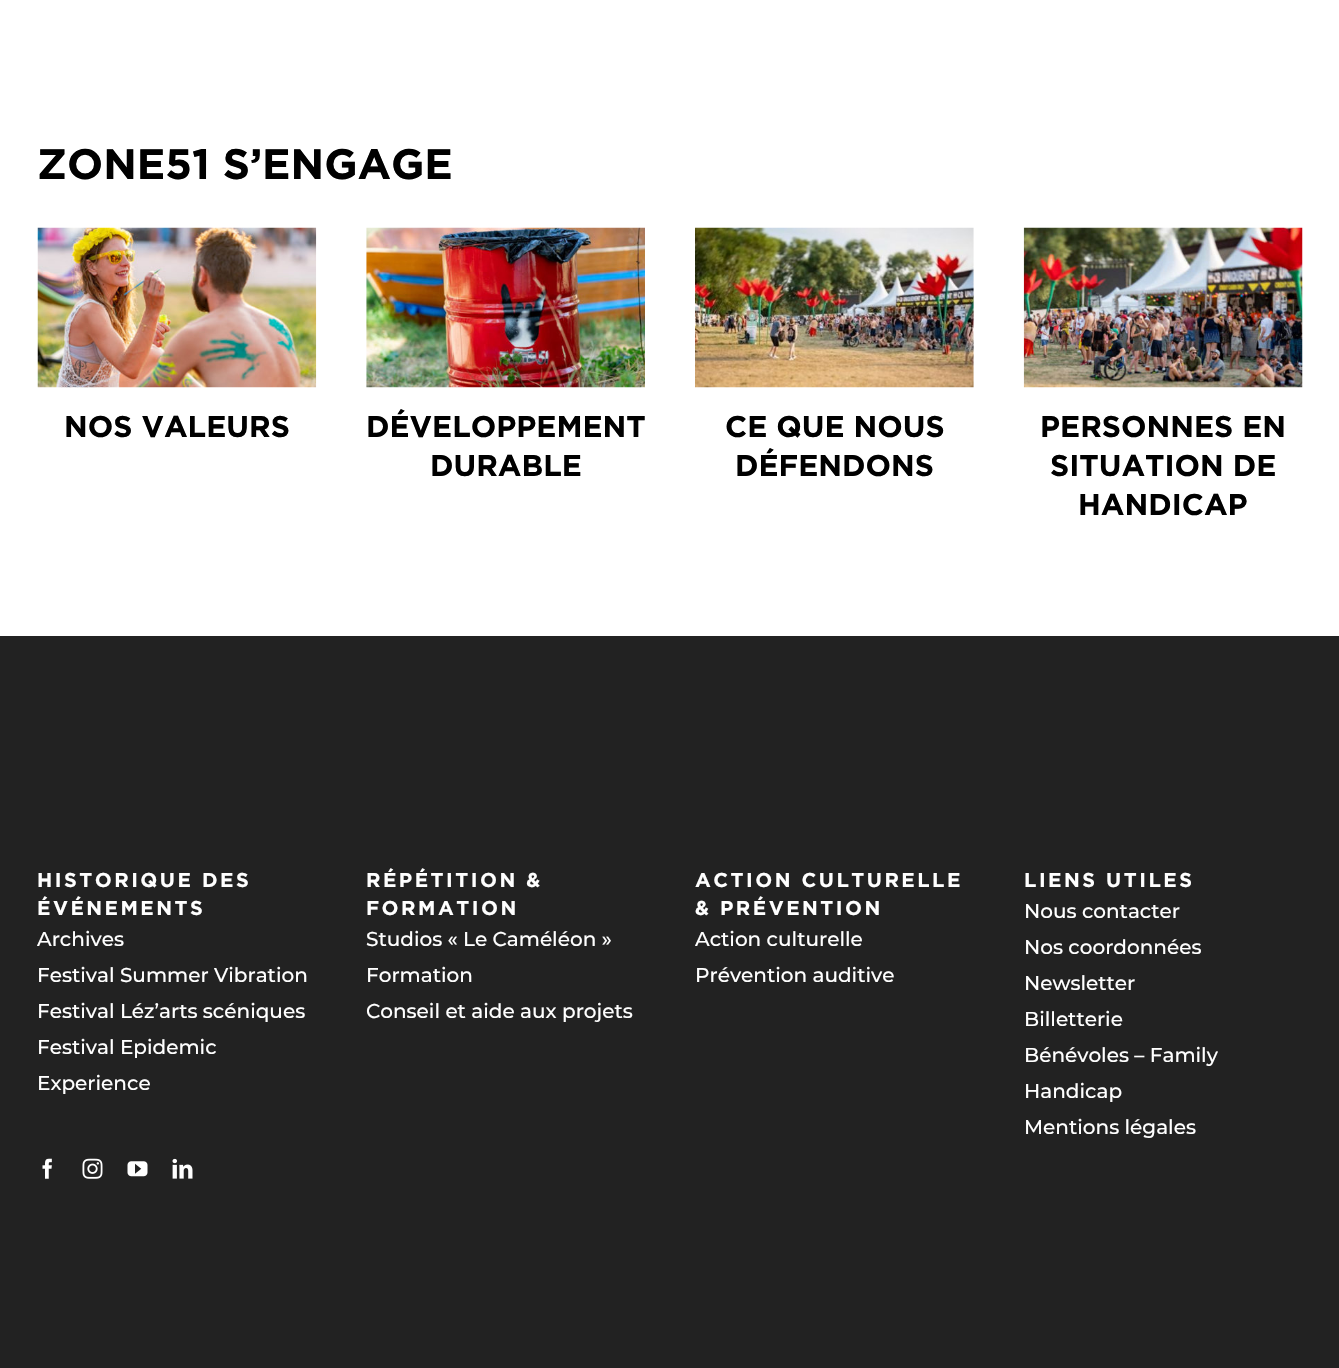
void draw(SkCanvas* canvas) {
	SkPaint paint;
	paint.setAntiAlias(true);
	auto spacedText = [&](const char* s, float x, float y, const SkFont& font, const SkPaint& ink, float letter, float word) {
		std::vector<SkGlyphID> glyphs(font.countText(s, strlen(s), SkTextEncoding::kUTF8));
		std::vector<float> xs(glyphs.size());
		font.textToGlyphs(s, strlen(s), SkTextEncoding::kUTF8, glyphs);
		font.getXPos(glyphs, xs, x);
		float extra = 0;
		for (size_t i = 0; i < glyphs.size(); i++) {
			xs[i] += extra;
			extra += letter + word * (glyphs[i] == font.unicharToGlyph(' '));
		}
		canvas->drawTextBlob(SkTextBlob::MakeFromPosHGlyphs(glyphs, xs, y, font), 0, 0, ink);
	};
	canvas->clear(0xffffffff);
	SkFont f1(fontMgr->matchFamilyStyle("Gotham", SkFontStyle::Bold()), 42.5);
	f1.setSubpixel(true);
	paint.setColor(0xff000000);
	canvas->drawString("ZONE51 S’ENGAGE", 37, 179, f1, paint);
	canvas->drawImageRect(SkImages::DeferredFromEncodedData(SkData::MakeFromFileName("img1.png")), SkRect::MakeXYWH(37, 227, 280, 161), SkSamplingOptions());
	SkFont f2(fontMgr->matchFamilyStyle("Gotham", SkFontStyle::Bold()), 30);
	f2.setSubpixel(true);
	canvas->drawString("NOS VALEURS", 64, 437, f2, paint);
	canvas->drawImageRect(SkImages::DeferredFromEncodedData(SkData::MakeFromFileName("img2.png")), SkRect::MakeXYWH(366, 227, 279, 161), SkSamplingOptions());
	canvas->drawString("DÉVELOPPEMENT", 366, 437, f2, paint);
	canvas->drawString("DURABLE", 430, 476, f2, paint);
	canvas->drawImageRect(SkImages::DeferredFromEncodedData(SkData::MakeFromFileName("img3.png")), SkRect::MakeXYWH(695, 227, 279, 161), SkSamplingOptions());
	canvas->drawString("CE QUE NOUS", 725, 437, f2, paint);
	canvas->drawString("DÉFENDONS", 735, 476, f2, paint);
	canvas->drawImageRect(SkImages::DeferredFromEncodedData(SkData::MakeFromFileName("img4.png")), SkRect::MakeXYWH(1023, 227, 280, 161), SkSamplingOptions());
	canvas->drawString("PERSONNES EN", 1040, 437, f2, paint);
	canvas->drawString("SITUATION DE", 1050, 476, f2, paint);
	canvas->drawString("HANDICAP", 1078, 515, f2, paint);
	paint.setColor(0xff222222);
	canvas->drawRect(SkRect::MakeXYWH(0, 636, 1339, 732), paint);
	SkFont f3(fontMgr->matchFamilyStyle("Gotham", SkFontStyle::Bold()), 20);
	f3.setSubpixel(true);
	paint.setColor(0xffffffff);
	spacedText("HISTORIQUE DES", 37, 887, f3, paint, 2.5, 0);
	spacedText("ÉVÉNEMENTS", 37, 915, f3, paint, 2.5, 0);
	SkFont f4(fontMgr->matchFamilyStyle("Montserrat", SkFontStyle(500, SkFontStyle::kNormal_Width, SkFontStyle::kUpright_Slant)), 20);
	f4.setSubpixel(true);
	canvas->drawString("Archives", 37, 946, f4, paint);
	canvas->drawString("Festival Summer Vibration", 37, 982, f4, paint);
	canvas->drawString("Festival Léz’arts scéniques", 37, 1018, f4, paint);
	canvas->drawString("Festival Epidemic", 37, 1054, f4, paint);
	canvas->drawString("Experience", 37, 1090, f4, paint);
	canvas->drawImageRect(SkImages::DeferredFromEncodedData(SkData::MakeFromFileName("img5.png")), SkRect::MakeXYWH(42, 1158, 10, 21), SkSamplingOptions());
	canvas->drawImageRect(SkImages::DeferredFromEncodedData(SkData::MakeFromFileName("img6.png")), SkRect::MakeXYWH(82, 1158, 21, 21), SkSamplingOptions());
	canvas->drawImageRect(SkImages::DeferredFromEncodedData(SkData::MakeFromFileName("img7.png")), SkRect::MakeXYWH(127, 1161, 21, 16), SkSamplingOptions());
	canvas->drawImageRect(SkImages::DeferredFromEncodedData(SkData::MakeFromFileName("img8.png")), SkRect::MakeXYWH(172, 1158, 21, 21), SkSamplingOptions());
	spacedText("RÉPÉTITION &", 366, 887, f3, paint, 2.5, 0);
	spacedText("FORMATION", 366, 915, f3, paint, 2.5, 0);
	canvas->drawString("Studios « Le Caméléon »", 366, 946, f4, paint);
	canvas->drawString("Formation", 366, 982, f4, paint);
	canvas->drawString("Conseil et aide aux projets", 366, 1018, f4, paint);
	spacedText("ACTION CULTURELLE", 695, 887, f3, paint, 2.5, 0);
	spacedText("& PRÉVENTION", 695, 915, f3, paint, 2.5, 0);
	canvas->drawString("Action culturelle", 695, 946, f4, paint);
	canvas->drawString("Prévention auditive", 695, 982, f4, paint);
	spacedText("LIENS UTILES", 1024, 887, f3, paint, 2.5, 0);
	canvas->drawString("Nous contacter", 1024, 918, f4, paint);
	canvas->drawString("Nos coordonnées", 1024, 954, f4, paint);
	canvas->drawString("Newsletter", 1024, 990, f4, paint);
	canvas->drawString("Billetterie", 1024, 1026, f4, paint);
	canvas->drawString("Bénévoles – Family", 1024, 1062, f4, paint);
	canvas->drawString("Handicap", 1024, 1098, f4, paint);
	canvas->drawString("Mentions légales", 1024, 1134, f4, paint);
}
